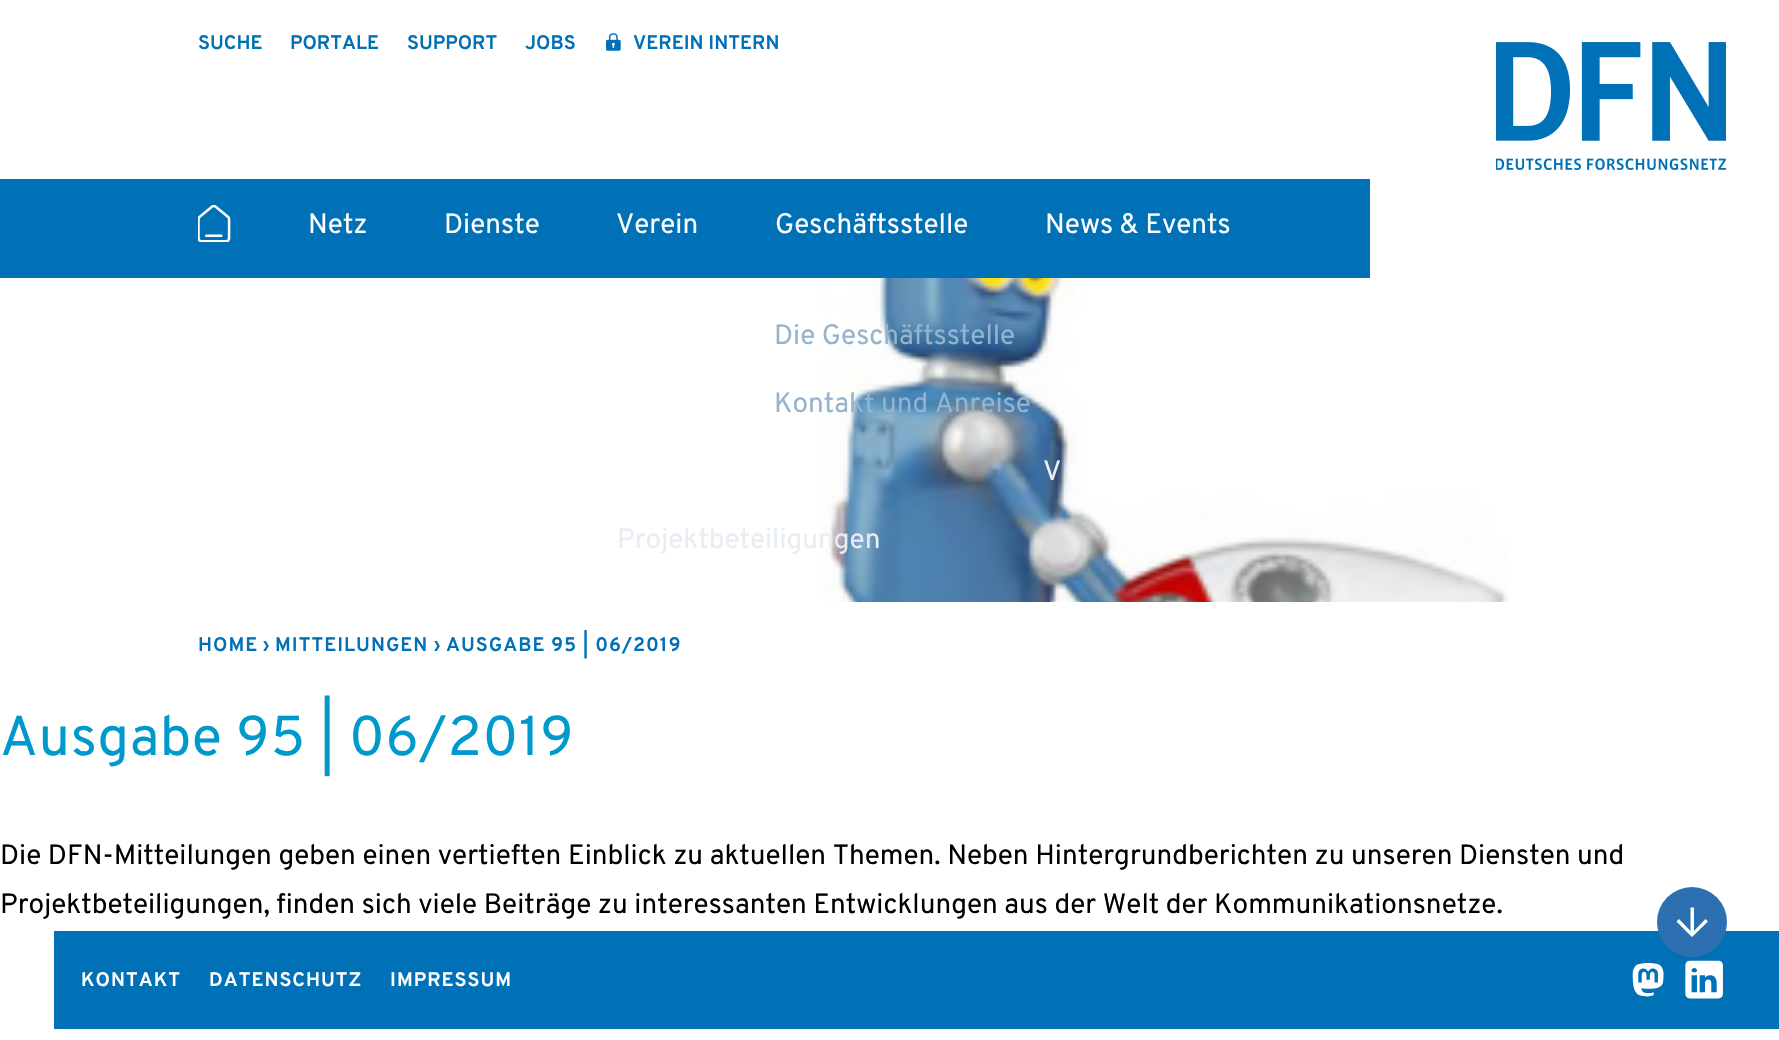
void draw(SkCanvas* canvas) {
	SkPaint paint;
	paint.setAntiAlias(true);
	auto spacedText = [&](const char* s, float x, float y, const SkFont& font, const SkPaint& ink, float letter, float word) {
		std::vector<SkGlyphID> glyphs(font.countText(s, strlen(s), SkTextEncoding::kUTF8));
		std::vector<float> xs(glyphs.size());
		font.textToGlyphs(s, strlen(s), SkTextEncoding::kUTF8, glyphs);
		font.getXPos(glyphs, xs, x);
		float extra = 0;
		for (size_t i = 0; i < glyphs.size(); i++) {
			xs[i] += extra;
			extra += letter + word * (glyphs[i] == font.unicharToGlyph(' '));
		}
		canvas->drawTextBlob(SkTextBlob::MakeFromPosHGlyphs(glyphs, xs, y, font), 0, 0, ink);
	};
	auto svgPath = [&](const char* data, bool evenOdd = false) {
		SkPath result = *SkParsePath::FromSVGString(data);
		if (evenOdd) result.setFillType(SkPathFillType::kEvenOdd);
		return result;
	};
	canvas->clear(0xffffffff);
	SkFont f1(fontMgr->matchFamilyStyle("Overpass", SkFontStyle::Bold()), 19.6);
	f1.setSubpixel(true);
	paint.setColor(0xff0070b7);
	canvas->drawString("SUCHE", 198, 49, f1, paint);
	canvas->drawString("PORTALE", 290, 49, f1, paint);
	canvas->drawString("SUPPORT", 407, 49, f1, paint);
	canvas->drawString("JOBS", 525, 49, f1, paint);
	canvas->drawImageRect(SkImages::DeferredFromEncodedData(SkData::MakeFromFileName("img1.png")), SkRect::MakeXYWH(606, 33, 15, 18), SkSamplingOptions());
	canvas->drawString("VEREIN INTERN", 633, 49, f1, paint);
	canvas->drawImageRect(SkImages::DeferredFromEncodedData(SkData::MakeFromFileName("img2.png")), SkRect::MakeXYWH(1496, 42, 230, 128), SkSamplingOptions());
	canvas->drawImageRect(SkImages::DeferredFromEncodedData(SkData::MakeFromFileName("img4.png")), SkRect::MakeXYWH(822, 224, 687, 378), SkSamplingOptions());
	canvas->drawRect(SkRect::MakeXYWH(0, 179, 1370, 99), paint);
	canvas->drawImageRect(SkImages::DeferredFromEncodedData(SkData::MakeFromFileName("img3.png")), SkRect::MakeXYWH(198, 205, 33, 37), SkSamplingOptions());
	SkFont f2(fontMgr->matchFamilyStyle("Overpass", SkFontStyle::Normal()), 28);
	f2.setSubpixel(true);
	paint.setColor(0xffffffff);
	canvas->drawString("Netz", 308, 233, f2, paint);
	canvas->drawString("Dienste", 444, 233, f2, paint);
	canvas->drawString("Verein", 616, 233, f2, paint);
	paint.setColor(0xffe7edf2);
	canvas->drawString("Projektbeteiligungen", 617, 548, f2, paint);
	paint.setColor(0xffffffff);
	canvas->drawString("Geschäftsstelle", 775, 233, f2, paint);
	paint.setColor(0xff95b3cc);
	canvas->drawString("Die Geschäftsstelle", 774, 344, f2, paint);
	canvas->drawString("Kontakt und Anreise", 774, 412, f2, paint);
	paint.setColor(0xffffffff);
	canvas->drawString("News & Events", 1045, 233, f2, paint);
	paint.setColor(0xffeef1f4);
	canvas->drawString("V", 1043, 480, f2, paint);
	paint.setColor(0xff0070b7);
	spacedText("HOME", 198, 651, f1, paint, 1, 0);
	canvas->drawString("›", 263, 651, f1, paint);
	spacedText("MITTEILUNGEN", 275, 651, f1, paint, 1, 0);
	canvas->drawString("›", 434, 651, f1, paint);
	spacedText("AUSGABE 95 | 06/2019", 446, 651, f1, paint, 1, 0);
	SkFont f3(fontMgr->matchFamilyStyle("Overpass", SkFontStyle::Normal()), 56);
	f3.setSubpixel(true);
	paint.setColor(0xff0099cc);
	spacedText("Ausgabe 95 | 06/2019", 0, 755, f3, paint, 0.6, 0);
	paint.setColor(0xff000000);
	canvas->drawString("Die DFN-Mitteilungen geben einen vertieften Einblick zu aktuellen Themen. Neben Hintergrundberichten zu unseren Diensten und", 0, 864, f2, paint);
	canvas->drawString("Projektbeteiligungen, finden sich viele Beiträge zu interessanten Entwicklungen aus der Welt der Kommunikationsnetze.", 0, 913, f2, paint);
	paint.setColor(0xff0070b7);
	canvas->drawRect(SkRect::MakeXYWH(54, 931, 1725, 98), paint);
	paint.setColor(0xffffffff);
	spacedText("KONTAKT", 81, 986, f1, paint, 1, 0);
	spacedText("DATENSCHUTZ", 209, 986, f1, paint, 1, 0);
	spacedText("IMPRESSUM", 390, 986, f1, paint, 1, 0);
	canvas->drawImageRect(SkImages::DeferredFromEncodedData(SkData::MakeFromFileName("img5.png")), SkRect::MakeXYWH(1632, 963, 32, 34), SkSamplingOptions());
	canvas->drawImageRect(SkImages::DeferredFromEncodedData(SkData::MakeFromFileName("img6.png")), SkRect::MakeXYWH(1685, 960, 38, 39), SkSamplingOptions());
	paint.setColor(0xff2d70b2);
	canvas->drawCircle(1692, 922, 35, paint);
	paint.setColor(0xffffffff);
	canvas->drawPath(svgPath("M1694 907.5H1690.5V931L1679 919L1676.5 921.5L1692 937L1708 921.5L1705.5 919L1694 931Z"), paint);
}
